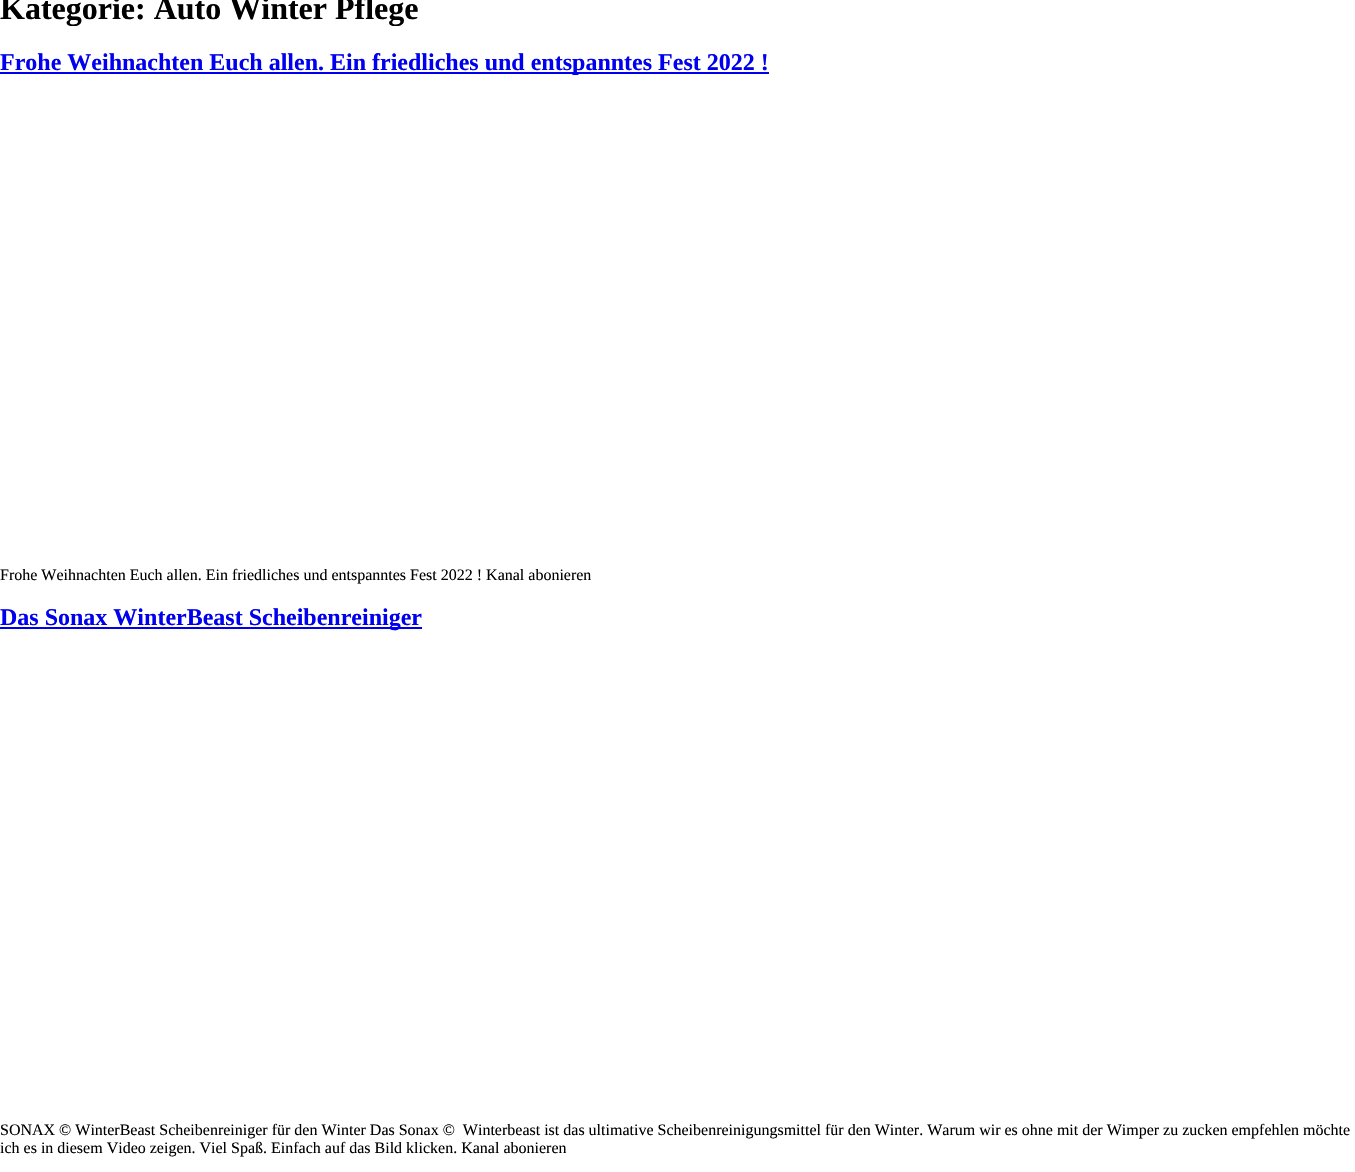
void draw(SkCanvas* canvas) {
	SkPaint paint;
	paint.setAntiAlias(true);
	canvas->clear(0xffffffff);
	SkFont f1(fontMgr->matchFamilyStyle("Liberation Serif", SkFontStyle::Bold()), 32);
	f1.setSubpixel(true);
	paint.setColor(0xff000000);
	canvas->drawString("Kategorie: Auto Winter Pflege", 0, 19, f1, paint);
	paint.setColor(0xff0000ee);
	canvas->drawRect(SkRect::MakeXYWH(0, 72, 769, 2), paint);
	SkFont f2(fontMgr->matchFamilyStyle("Liberation Serif", SkFontStyle::Bold()), 24);
	f2.setSubpixel(true);
	canvas->drawString("Frohe Weihnachten Euch allen. Ein friedliches und entspanntes Fest 2022 !", 0, 70, f2, paint);
	SkFont f3(fontMgr->matchFamilyStyle("Liberation Serif", SkFontStyle::Normal()), 16);
	f3.setSubpixel(true);
	paint.setColor(0xff000000);
	canvas->drawString("Frohe Weihnachten Euch allen. Ein friedliches und entspanntes Fest 2022 ! Kanal abonieren", 0, 580, f3, paint);
	paint.setColor(0xff0000ee);
	canvas->drawRect(SkRect::MakeXYWH(0, 627, 422, 2), paint);
	canvas->drawString("Das Sonax WinterBeast Scheibenreiniger", 0, 625, f2, paint);
	paint.setColor(0xff000000);
	canvas->drawString("SONAX © WinterBeast Scheibenreiniger für den Winter Das Sonax ©  Winterbeast ist das ultimative Scheibenreinigungsmittel für den Winter. Warum wir es ohne mit der Wimper zu zucken empfehlen möchte", 0, 1135, f3, paint);
	canvas->drawString("ich es in diesem Video zeigen. Viel Spaß. Einfach auf das Bild klicken. Kanal abonieren", 0, 1153, f3, paint);
}
